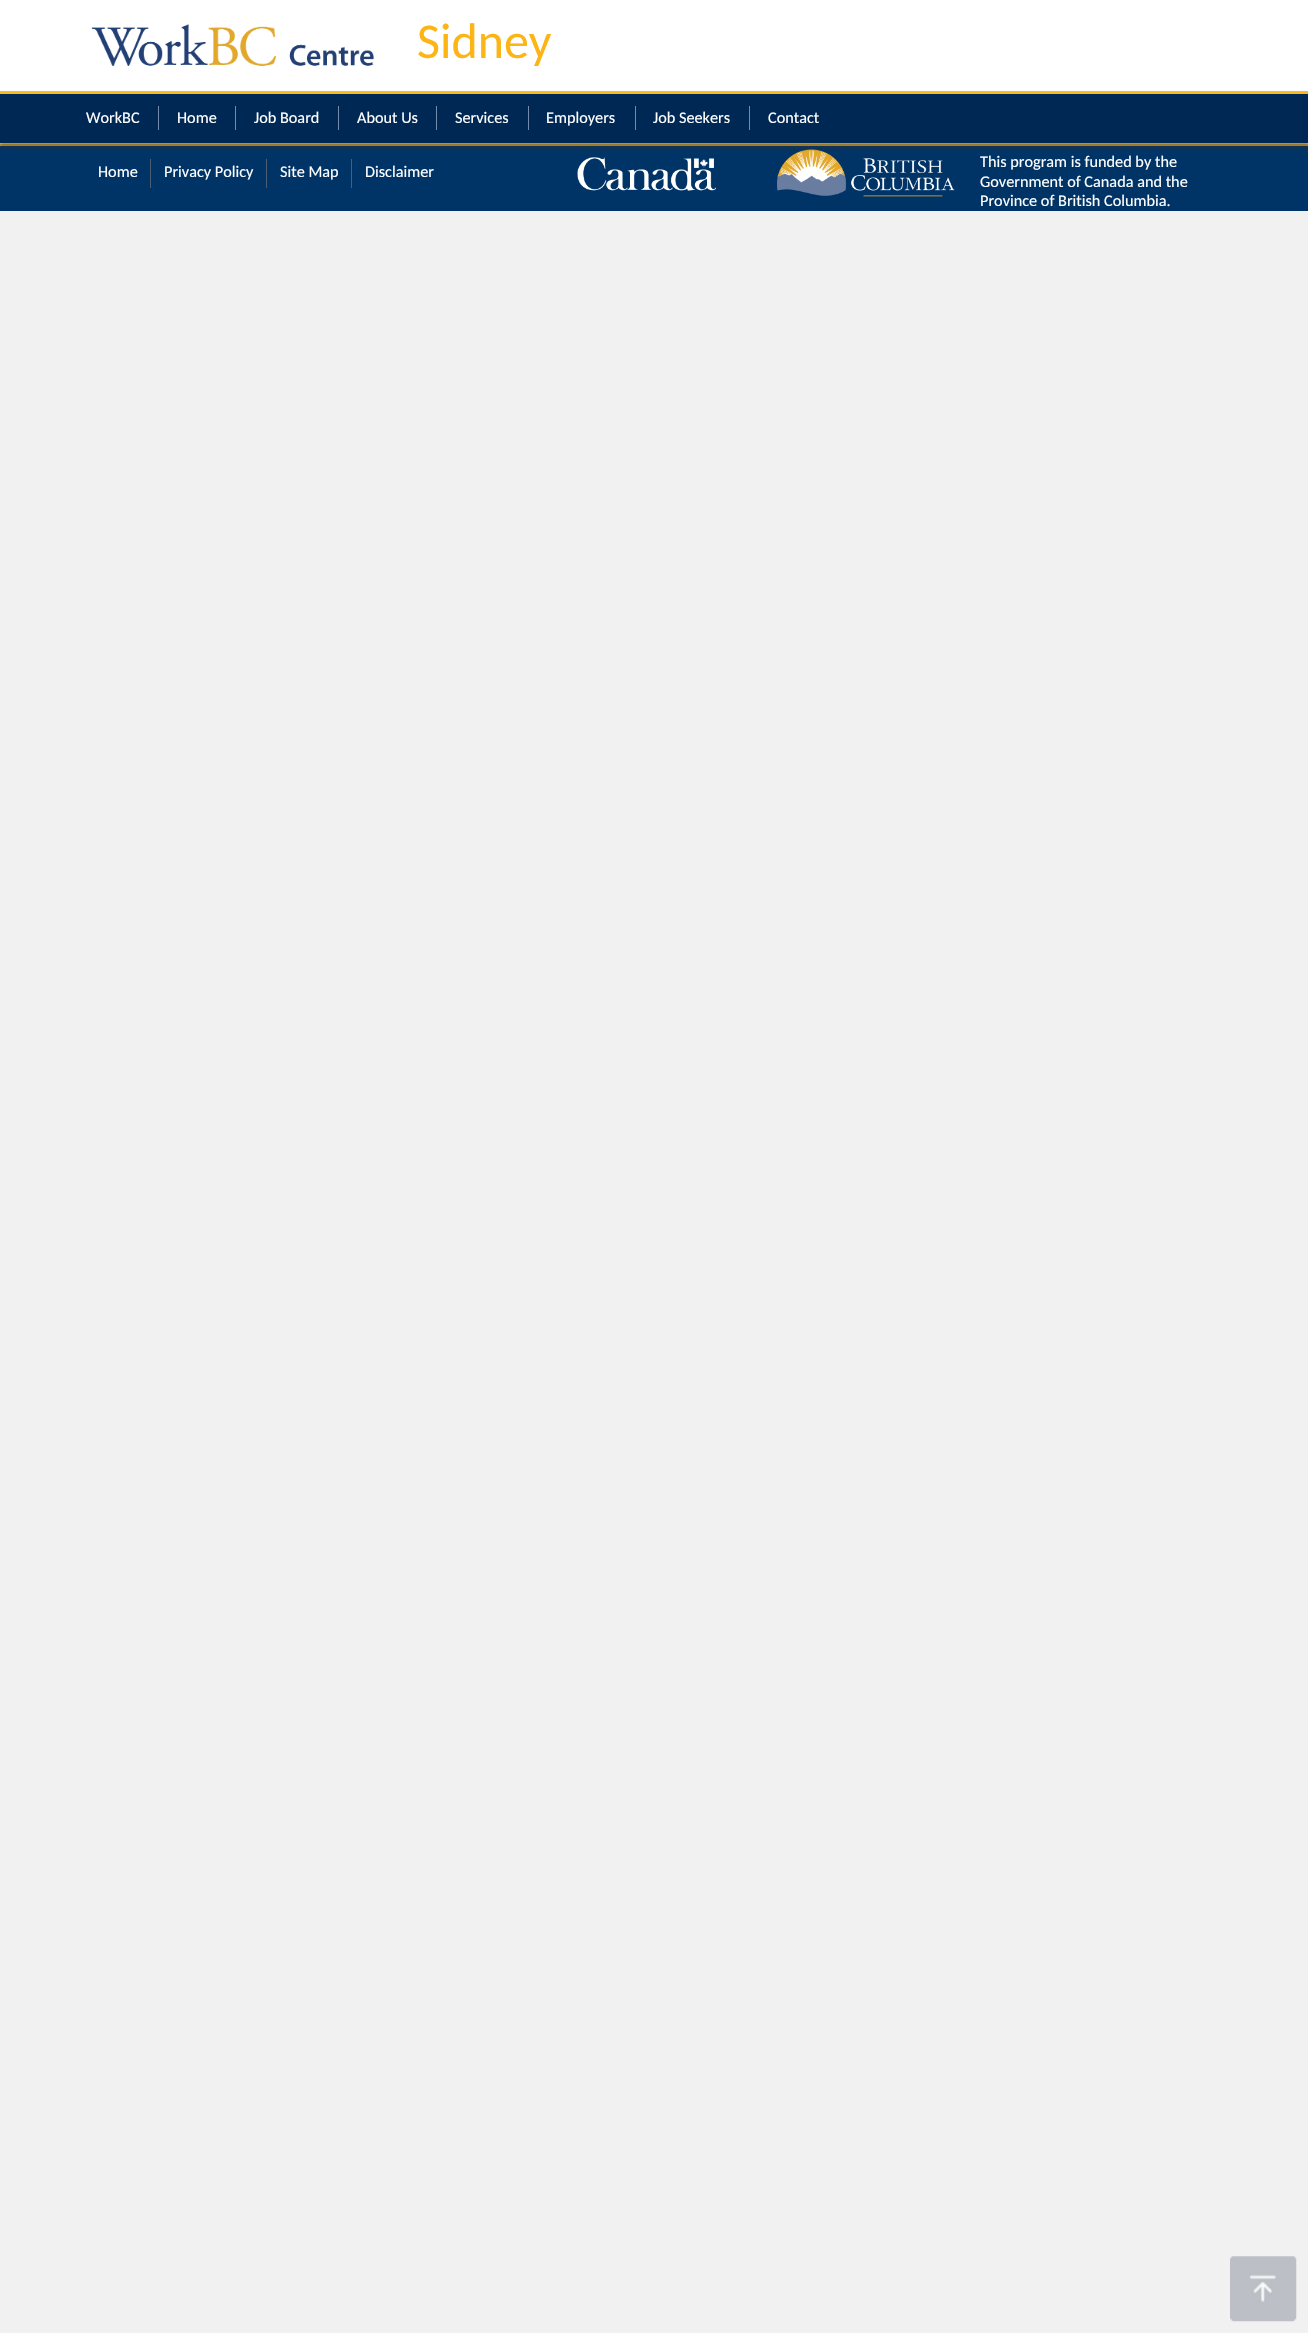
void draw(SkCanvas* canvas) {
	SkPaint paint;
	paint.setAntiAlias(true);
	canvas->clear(0xfff1f1f1);
	paint.setColor(0xffffffff);
	canvas->drawRect(SkRect::MakeXYWH(0, 0, 1308, 91), paint);
	canvas->drawImageRect(SkImages::DeferredFromEncodedData(SkData::MakeFromFileName("img1.png")), SkRect::MakeXYWH(91, 24, 283, 42), SkSamplingOptions());
	SkFont f1(fontMgr->matchFamilyStyle("Carlito", SkFontStyle::Normal()), 50);
	f1.setSubpixel(true);
	paint.setColor(0xfffcb515);
	canvas->drawString("Sidney", 417, 58, f1, paint);
	paint.setColor(0xfffcba19);
	canvas->drawRect(SkRect::MakeXYWH(0, 144, 1308, 2), paint);
	paint.setColor(0xff003366);
	canvas->drawRect(SkRect::MakeXYWH(0, 146, 1308, 65), paint);
	canvas->drawImageRect(SkImages::DeferredFromEncodedData(SkData::MakeFromFileName("img2.png")), SkRect::MakeXYWH(577, 149, 378, 48), SkSamplingOptions());
	paint.setColor(0x80333333);
	paint.setMaskFilter(SkMaskFilter::MakeBlur(kNormal_SkBlurStyle, 2));
	canvas->drawRect(SkRect::MakeXYWH(-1, 94, 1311, 54), paint);
	paint.setMaskFilter(nullptr);
	paint.setColor(0xfffcba19);
	canvas->drawRect(SkRect::MakeXYWH(0, 91, 1308, 3), paint);
	paint.setColor(0xff002855);
	canvas->drawRect(SkRect::MakeXYWH(0, 94, 1308, 49), paint);
	SkFont f2(fontMgr->matchFamilyStyle("Carlito", SkFontStyle::Normal()), 16.25);
	f2.setSubpixel(true);
	paint.setColor(0xffffffff);
	canvas->drawString("WorkBC", 86, 123, f2, paint);
	paint.setColor(0xff748bad);
	canvas->drawRect(SkRect::MakeXYWH(158, 106, 1, 24), paint);
	paint.setColor(0xffffffff);
	canvas->drawString("Home", 177, 123, f2, paint);
	paint.setColor(0xff748bad);
	canvas->drawRect(SkRect::MakeXYWH(235, 106, 1, 24), paint);
	paint.setColor(0xffffffff);
	canvas->drawString("Job Board", 254, 123, f2, paint);
	paint.setColor(0xff748bad);
	canvas->drawRect(SkRect::MakeXYWH(338, 106, 1, 24), paint);
	paint.setColor(0xffffffff);
	canvas->drawString("About Us", 357, 123, f2, paint);
	paint.setColor(0xff748bad);
	canvas->drawRect(SkRect::MakeXYWH(436, 106, 1, 24), paint);
	paint.setColor(0xffffffff);
	canvas->drawString("Services", 455, 123, f2, paint);
	paint.setColor(0xff748bad);
	canvas->drawRect(SkRect::MakeXYWH(528, 106, 1, 24), paint);
	paint.setColor(0xffffffff);
	canvas->drawString("Employers", 546, 123, f2, paint);
	paint.setColor(0xff748bad);
	canvas->drawRect(SkRect::MakeXYWH(635, 106, 1, 24), paint);
	paint.setColor(0xffffffff);
	canvas->drawString("Job Seekers", 653, 123, f2, paint);
	paint.setColor(0xff748bad);
	canvas->drawRect(SkRect::MakeXYWH(749, 106, 1, 24), paint);
	paint.setColor(0xffffffff);
	canvas->drawString("Contact", 768, 123, f2, paint);
	canvas->drawString("Home", 98, 177, f2, paint);
	paint.setColor(0xff4b5e73);
	canvas->drawRect(SkRect::MakeXYWH(150, 159, 1, 29), paint);
	paint.setColor(0xffffffff);
	canvas->drawString("Privacy Policy", 164, 177, f2, paint);
	paint.setColor(0xff4b5e73);
	canvas->drawRect(SkRect::MakeXYWH(266, 159, 1, 29), paint);
	paint.setColor(0xffffffff);
	canvas->drawString("Site Map", 280, 177, f2, paint);
	paint.setColor(0xff4b5e73);
	canvas->drawRect(SkRect::MakeXYWH(351, 159, 1, 29), paint);
	paint.setColor(0xffffffff);
	canvas->drawString("Disclaimer", 365, 177, f2, paint);
	canvas->drawString("This program is funded by the", 980, 167, f2, paint);
	canvas->drawString("Government of Canada and the", 980, 187, f2, paint);
	canvas->drawString("Province of British Columbia.", 980, 206, f2, paint);
	canvas->drawImageRect(SkImages::DeferredFromEncodedData(SkData::MakeFromFileName("img3.png")), SkRect::MakeXYWH(1230, 2256, 67, 66), SkSamplingOptions());
}
